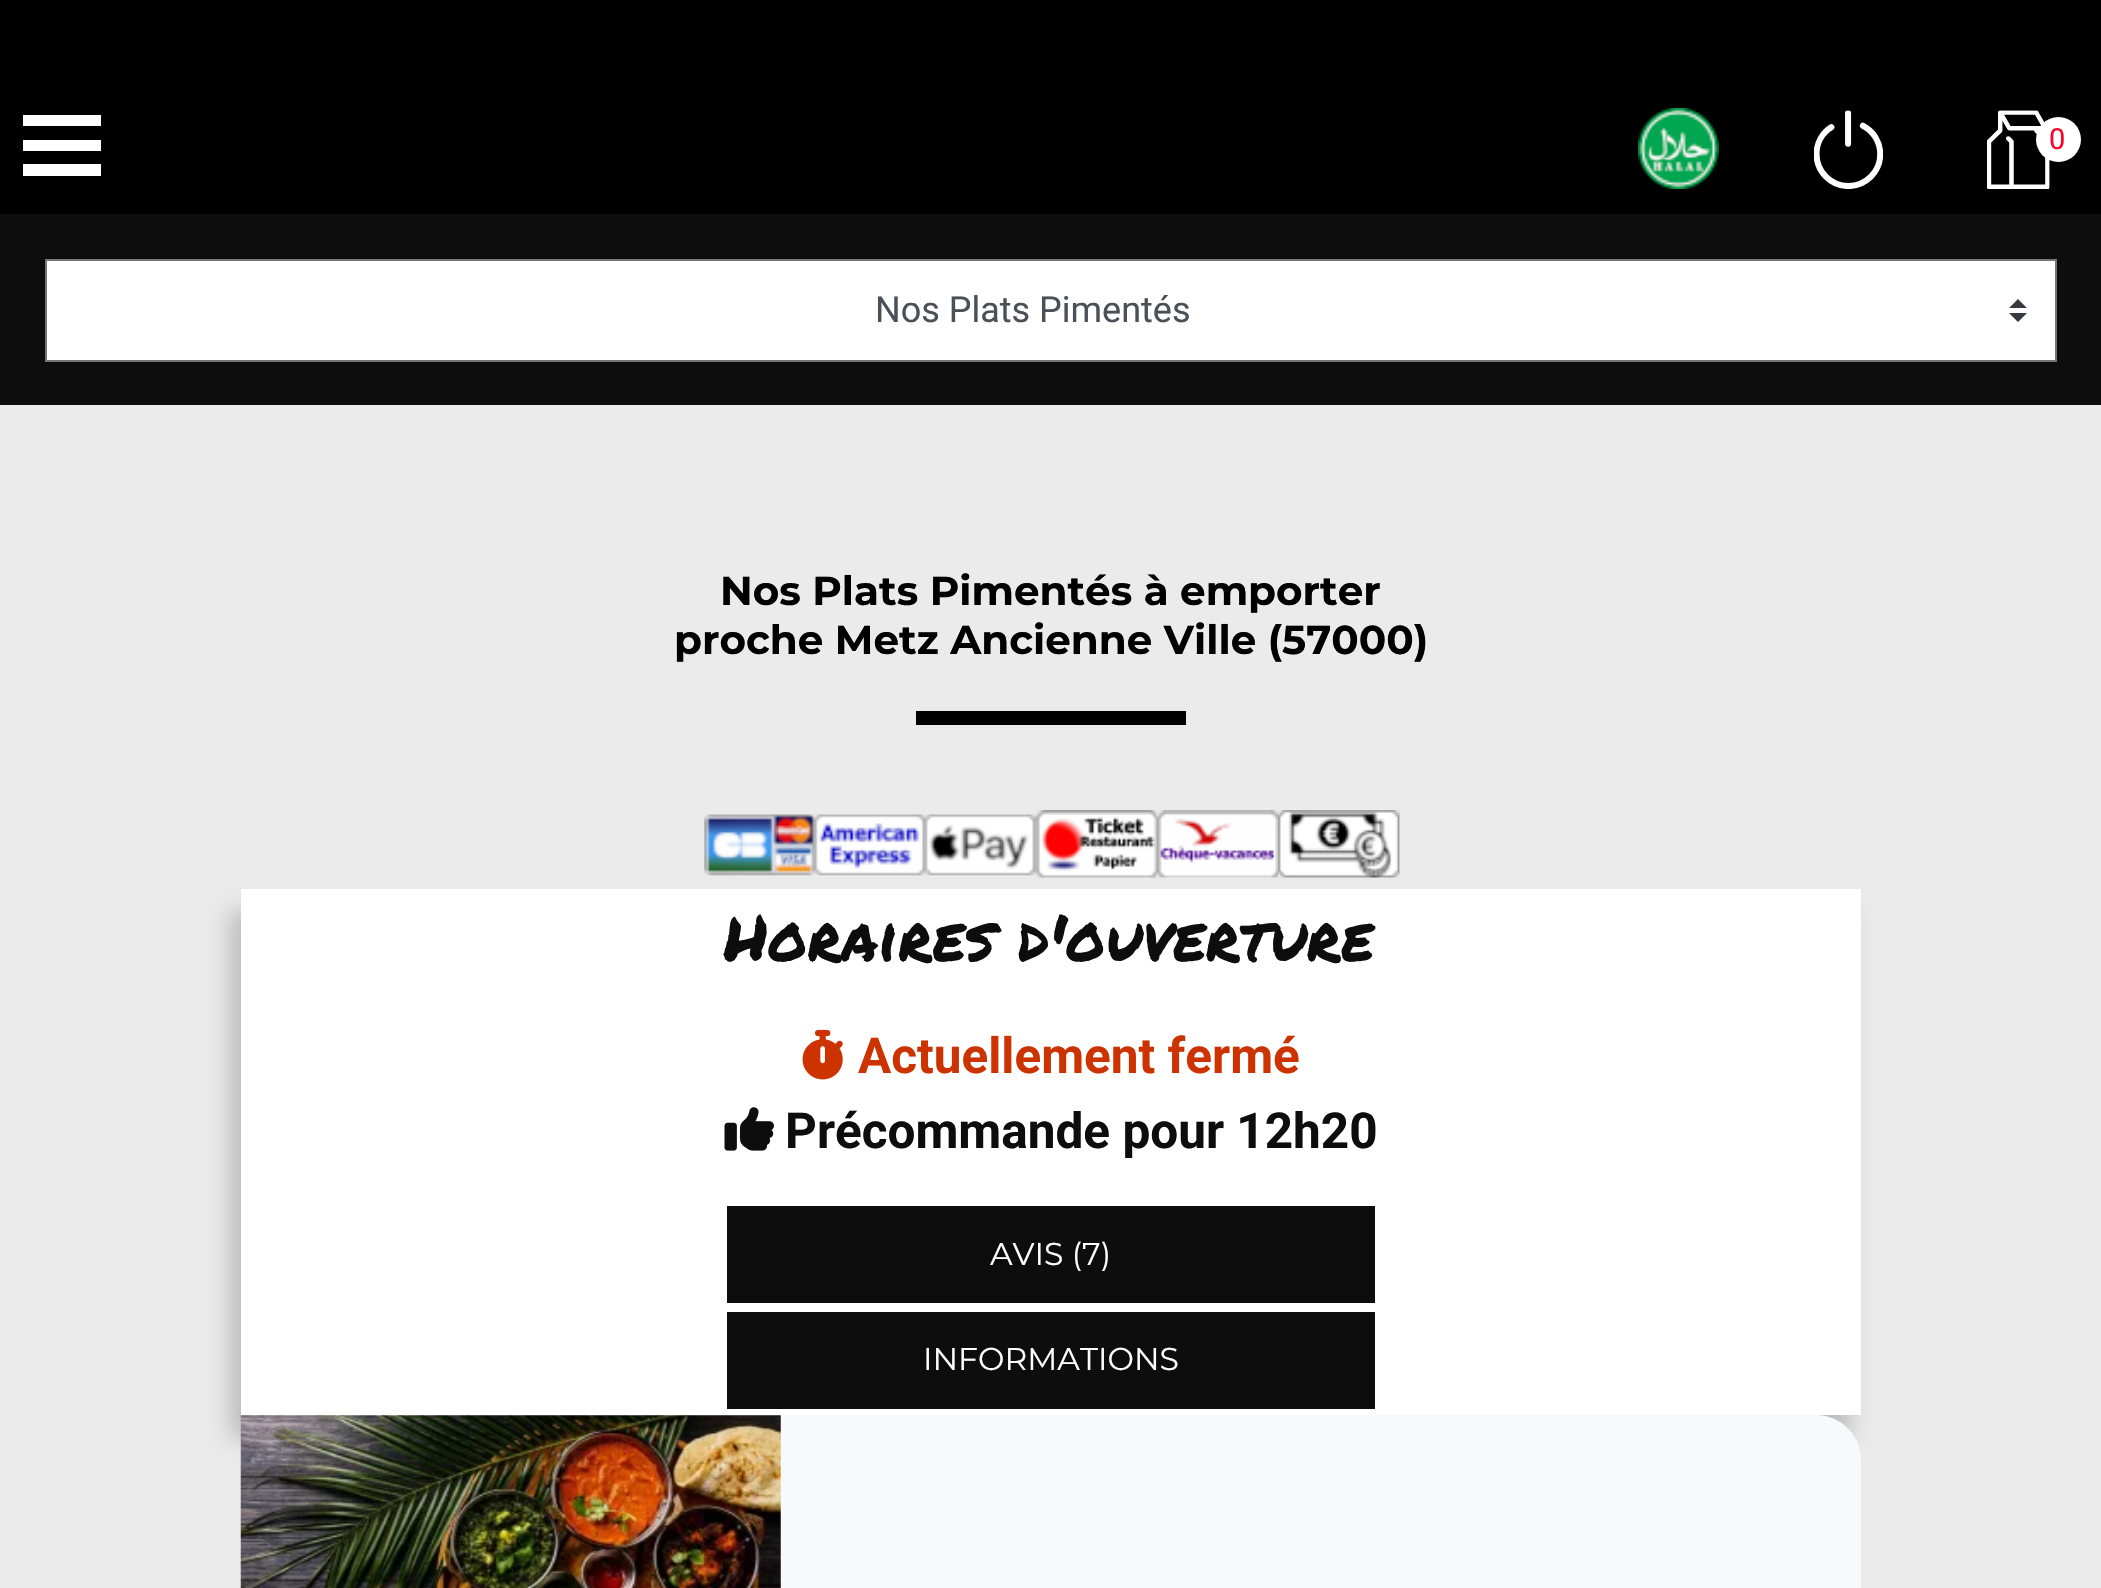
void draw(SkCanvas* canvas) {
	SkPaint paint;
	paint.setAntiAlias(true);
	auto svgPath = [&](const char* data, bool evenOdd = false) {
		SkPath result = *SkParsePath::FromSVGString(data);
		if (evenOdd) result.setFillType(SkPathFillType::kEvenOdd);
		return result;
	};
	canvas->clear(0xffebebeb);
	paint.setColor(0xff000000);
	canvas->drawRect(SkRect::MakeXYWH(0, 0, 2101, 79), paint);
	paint.setColor(0x45000101);
	paint.setMaskFilter(SkMaskFilter::MakeBlur(kNormal_SkBlurStyle, 11));
	canvas->drawRect(SkRect::MakeXYWH(0, 79, 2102, 135), paint);
	paint.setMaskFilter(nullptr);
	paint.setColor(0xff000000);
	canvas->drawRect(SkRect::MakeXYWH(0, 79, 2101, 135), paint);
	paint.setColor(0xffffffff);
	canvas->drawRect(SkRect::MakeXYWH(23, 115, 78, 11), paint);
	canvas->drawRect(SkRect::MakeXYWH(23, 140, 78, 11), paint);
	canvas->drawRect(SkRect::MakeXYWH(23, 164, 78, 12), paint);
	canvas->drawImageRect(SkImages::DeferredFromEncodedData(SkData::MakeFromFileName("img1.png")), SkRect::MakeXYWH(1638, 108, 81, 81), SkSamplingOptions());
	canvas->drawImageRect(SkImages::DeferredFromEncodedData(SkData::MakeFromFileName("img2.png")), SkRect::MakeXYWH(1814, 110, 69, 79), SkSamplingOptions());
	canvas->drawImageRect(SkImages::DeferredFromEncodedData(SkData::MakeFromFileName("img3.png")), SkRect::MakeXYWH(1987, 110, 63, 79), SkSamplingOptions());
	canvas->drawCircle(2058.5, 139.5, 22.5, paint);
	SkFont f1(fontMgr->matchFamilyStyle("Roboto", SkFontStyle::Normal()), 29);
	f1.setSubpixel(true);
	paint.setColor(0xffff002a);
	canvas->drawString("0", 2049, 149, f1, paint);
	paint.setColor(0xff0e0d0d);
	canvas->drawRect(SkRect::MakeXYWH(0, 214, 2101, 191), paint);
	paint.setColor(0xffffffff);
	canvas->drawRect(SkRect::MakeXYWH(47, 261, 2008, 99), paint);
	paint.setColor(0xff343a40);
	canvas->drawPath(svgPath("M2018 299L2009 308H2027ZM2018 322L2009 313H2027Z"), paint);
	paint.setStroke(true);
	paint.setStrokeWidth(2);
	paint.setColor(0xff767676);
	canvas->drawRect(SkRect::MakeXYWH(46, 260, 2010, 101), paint);
	SkFont f2(fontMgr->matchFamilyStyle("Roboto", SkFontStyle::Normal()), 36);
	f2.setSubpixel(true);
	paint.setStroke(false);
	paint.setColor(0xff495057);
	canvas->drawString("Nos Plats Pimentés", 875, 322, f2, paint);
	SkFont f3(fontMgr->matchFamilyStyle("Montserrat", SkFontStyle::Bold()), 40.5);
	f3.setSubpixel(true);
	paint.setColor(0xff000000);
	canvas->drawString("Nos Plats Pimentés à emporter", 720, 605, f3, paint);
	canvas->drawString("proche Metz Ancienne Ville (57000)", 674, 654, f3, paint);
	canvas->drawRect(SkRect::MakeXYWH(916, 711, 270, 14), paint);
	canvas->drawImageRect(SkImages::DeferredFromEncodedData(SkData::MakeFromFileName("img4.png")), SkRect::MakeXYWH(704, 814, 111, 62), SkSamplingOptions());
	canvas->drawImageRect(SkImages::DeferredFromEncodedData(SkData::MakeFromFileName("img5.png")), SkRect::MakeXYWH(814, 814, 111, 62), SkSamplingOptions());
	canvas->drawImageRect(SkImages::DeferredFromEncodedData(SkData::MakeFromFileName("img6.png")), SkRect::MakeXYWH(924, 814, 111, 62), SkSamplingOptions());
	paint.setColor(0xffbcbbbb);
	paint.setMaskFilter(SkMaskFilter::MakeBlur(kNormal_SkBlurStyle, 11));
	canvas->drawRect(SkRect::MakeXYWH(230, 911, 1620, 527), paint);
	paint.setMaskFilter(nullptr);
	canvas->drawImageRect(SkImages::DeferredFromEncodedData(SkData::MakeFromFileName("img7.png")), SkRect::MakeXYWH(1035, 810, 122, 68), SkSamplingOptions());
	canvas->drawImageRect(SkImages::DeferredFromEncodedData(SkData::MakeFromFileName("img8.png")), SkRect::MakeXYWH(1156, 810, 122, 68), SkSamplingOptions());
	canvas->drawImageRect(SkImages::DeferredFromEncodedData(SkData::MakeFromFileName("img9.png")), SkRect::MakeXYWH(1278, 810, 122, 68), SkSamplingOptions());
	paint.setColor(0xffffffff);
	canvas->drawRect(SkRect::MakeXYWH(241, 889, 1620, 526), paint);
	SkFont f4(fontMgr->matchFamilyStyle("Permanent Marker", SkFontStyle::Normal()), 63);
	f4.setSubpixel(true);
	paint.setColor(0xff0e0d0d);
	canvas->drawString("Horaires d'ouverture", 724, 961, f4, paint);
	canvas->drawImageRect(SkImages::DeferredFromEncodedData(SkData::MakeFromFileName("img10.png")), SkRect::MakeXYWH(802, 1029, 41, 51), SkSamplingOptions());
	SkFont f5(fontMgr->matchFamilyStyle("Roboto", SkFontStyle::Bold()), 49.5);
	f5.setSubpixel(true);
	paint.setColor(0xffcc3300);
	canvas->drawString("Actuellement fermé", 858, 1073, f5, paint);
	canvas->drawImageRect(SkImages::DeferredFromEncodedData(SkData::MakeFromFileName("img11.png")), SkRect::MakeXYWH(724, 1107, 50, 44), SkSamplingOptions());
	paint.setColor(0xff0e0d0d);
	canvas->drawString("Précommande pour 12h20", 785, 1148, f5, paint);
	canvas->drawRect(SkRect::MakeXYWH(727, 1206, 648, 97), paint);
	SkFont f6(fontMgr->matchFamilyStyle("Montserrat", SkFontStyle::Normal()), 31.5);
	f6.setSubpixel(true);
	paint.setColor(0xffffffff);
	canvas->drawString("AVIS (7)", 990, 1265, f6, paint);
	paint.setColor(0xff0e0d0d);
	canvas->drawRect(SkRect::MakeXYWH(727, 1312, 648, 97), paint);
	paint.setColor(0xffffffff);
	canvas->drawString("INFORMATIONS", 923, 1370, f6, paint);
	paint.setColor(0xfff8f9fa);
	canvas->drawRoundRect(SkRect::MakeXYWH(241, 1415, 1620, 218), 45, 45, paint);
	canvas->drawImageRect(SkImages::DeferredFromEncodedData(SkData::MakeFromFileName("img12.png")), SkRect::MakeXYWH(240, 1415, 541, 173), SkSamplingOptions());
}
